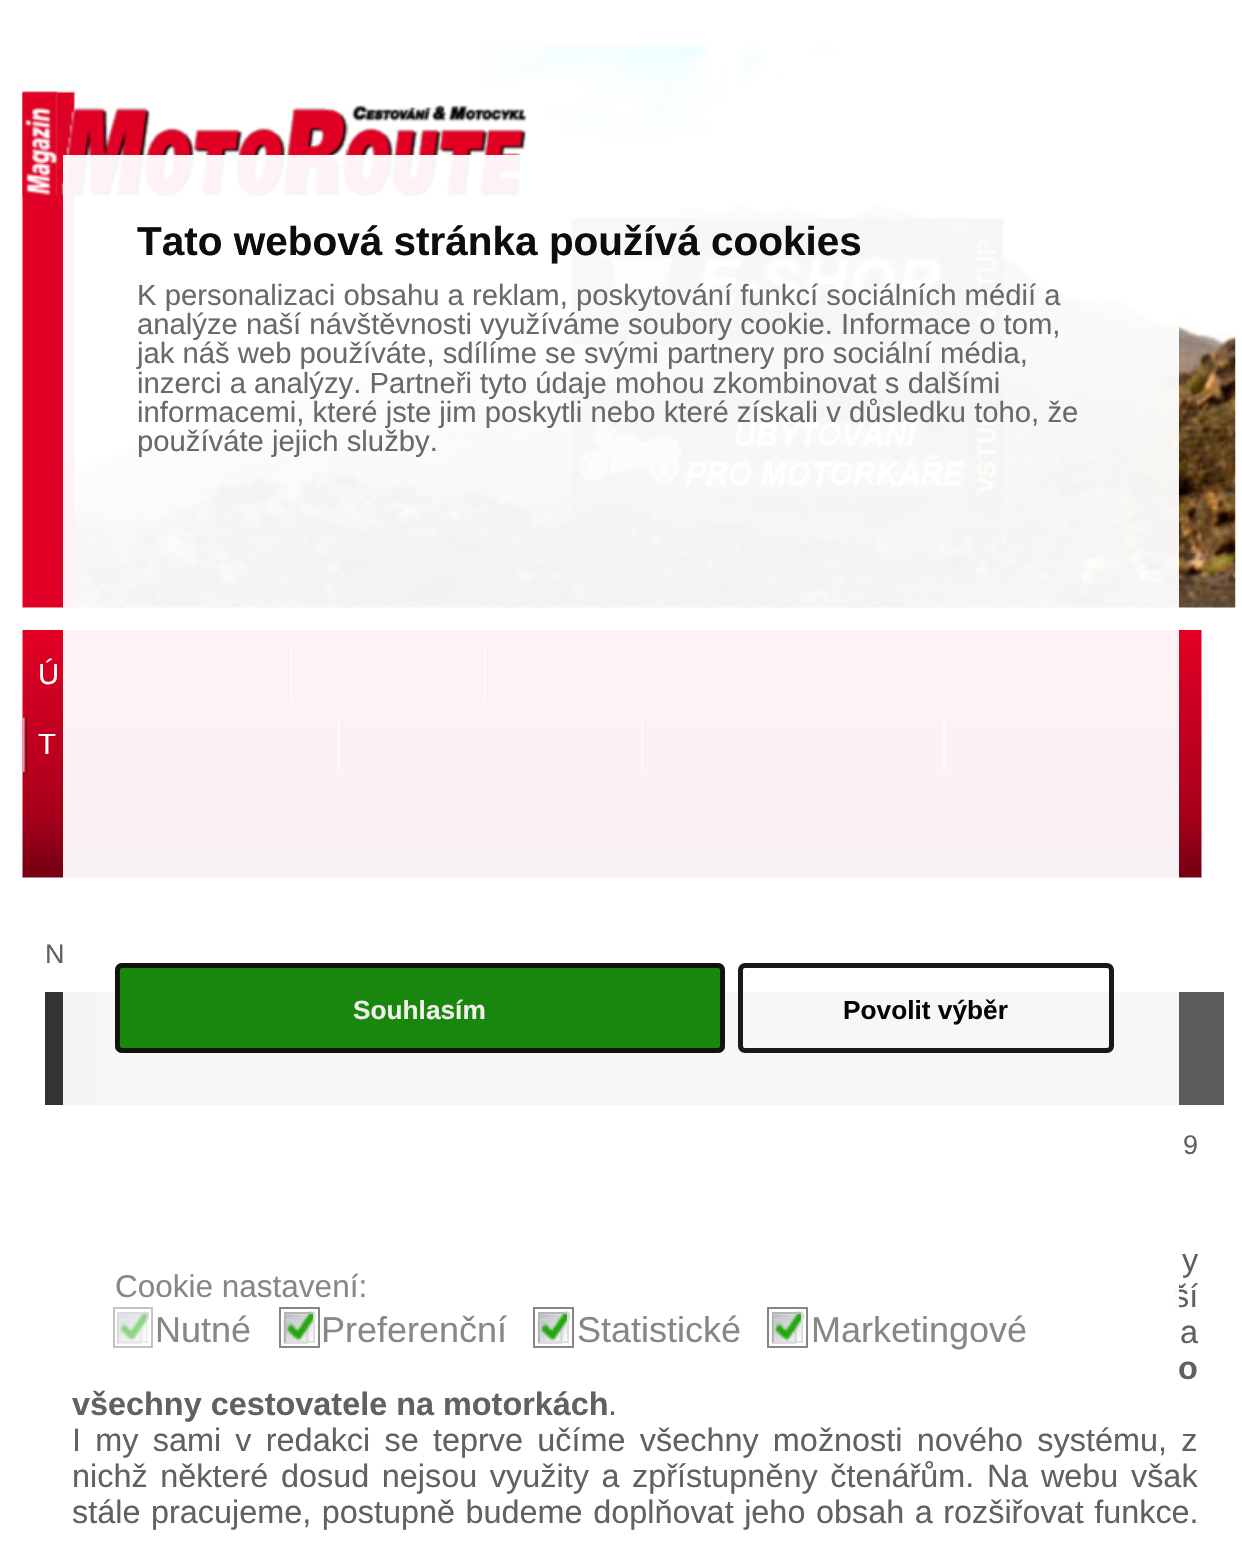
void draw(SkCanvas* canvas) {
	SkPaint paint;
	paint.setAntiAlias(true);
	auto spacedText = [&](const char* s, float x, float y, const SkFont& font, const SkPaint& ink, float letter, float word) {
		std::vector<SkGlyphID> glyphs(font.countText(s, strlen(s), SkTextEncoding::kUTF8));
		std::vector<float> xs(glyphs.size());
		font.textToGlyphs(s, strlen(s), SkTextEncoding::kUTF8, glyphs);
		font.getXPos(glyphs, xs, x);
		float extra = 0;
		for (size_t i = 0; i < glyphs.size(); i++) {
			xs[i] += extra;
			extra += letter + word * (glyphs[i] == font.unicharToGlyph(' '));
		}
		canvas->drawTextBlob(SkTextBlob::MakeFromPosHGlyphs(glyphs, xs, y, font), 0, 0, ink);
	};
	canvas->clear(0xffffffff);
	canvas->drawImageRect(SkImages::DeferredFromEncodedData(SkData::MakeFromFileName("img5.png")), SkRect::MakeXYWH(22, 45, 1214, 563), SkSamplingOptions());
	canvas->drawImageRect(SkImages::DeferredFromEncodedData(SkData::MakeFromFileName("img6.png")), SkRect::MakeXYWH(22, 91, 505, 105), SkSamplingOptions());
	canvas->drawImageRect(SkImages::DeferredFromEncodedData(SkData::MakeFromFileName("img7.png")), SkRect::MakeXYWH(571, 218, 433, 127), SkSamplingOptions());
	canvas->drawImageRect(SkImages::DeferredFromEncodedData(SkData::MakeFromFileName("img8.png")), SkRect::MakeXYWH(571, 389, 433, 127), SkSamplingOptions());
	canvas->drawImageRect(SkImages::DeferredFromEncodedData(SkData::MakeFromFileName("img9.png")), SkRect::MakeXYWH(22, 630, 1180, 248), SkSamplingOptions());
	canvas->drawImageRect(SkImages::DeferredFromEncodedData(SkData::MakeFromFileName("img10.png")), SkRect::MakeXYWH(290, 648, 5, 54), SkSamplingOptions());
	canvas->drawImageRect(SkImages::DeferredFromEncodedData(SkData::MakeFromFileName("img11.png")), SkRect::MakeXYWH(483, 648, 6, 54), SkSamplingOptions());
	canvas->drawImageRect(SkImages::DeferredFromEncodedData(SkData::MakeFromFileName("img13.png")), SkRect::MakeXYWH(337, 717, 5, 55), SkSamplingOptions());
	canvas->drawImageRect(SkImages::DeferredFromEncodedData(SkData::MakeFromFileName("img14.png")), SkRect::MakeXYWH(641, 717, 5, 55), SkSamplingOptions());
	canvas->drawImageRect(SkImages::DeferredFromEncodedData(SkData::MakeFromFileName("img15.png")), SkRect::MakeXYWH(942, 717, 6, 55), SkSamplingOptions());
	paint.setColor(0xff616161);
	canvas->drawRect(SkRect::MakeXYWH(218, 965, 221, 2), paint);
	canvas->drawRect(SkRect::MakeXYWH(461, 965, 104, 2), paint);
	paint.setColor(0xff5c5c5c);
	canvas->drawRect(SkRect::MakeXYWH(95, 992, 1129, 113), paint);
	paint.setColor(0xff333333);
	canvas->drawRect(SkRect::MakeXYWH(45, 992, 50, 113), paint);
	SkFont f1(fontMgr->matchFamilyStyle("Liberation Sans", SkFontStyle::Normal()), 32.4);
	f1.setSubpixel(true);
	paint.setColor(0xff616161);
	spacedText("ší", 1173, 1307, f1, paint, 0, 16);
	paint.setColor(0xf2ffffff);
	canvas->drawRect(SkRect::MakeXYWH(63, 155, 1116, 1153), paint);
	SkFont f2(fontMgr->matchFamilyStyle("Liberation Sans", SkFontStyle::Bold()), 40.5);
	f2.setSubpixel(true);
	paint.setColor(0xff0d0d0d);
	canvas->drawString("Tato webová stránka používá cookies", 137, 255, f2, paint);
	SkFont f3(fontMgr->matchFamilyStyle("Liberation Sans", SkFontStyle::Normal()), 29.25);
	f3.setSubpixel(true);
	paint.setColor(0xff696969);
	canvas->drawString("K personalizaci obsahu a reklam, poskytování funkcí sociálních médií a", 137, 305, f3, paint);
	canvas->drawString("analýze naší návštěvnosti využíváme soubory cookie. Informace o tom,", 137, 334, f3, paint);
	canvas->drawString("jak náš web používáte, sdílíme se svými partnery pro sociální média,", 137, 363, f3, paint);
	canvas->drawString("inzerci a analýzy. Partneři tyto údaje mohou zkombinovat s dalšími", 137, 393, f3, paint);
	canvas->drawString("informacemi, které jste jim poskytli nebo které získali v důsledku toho, že", 137, 422, f3, paint);
	canvas->drawString("používáte jejich služby.", 137, 451, f3, paint);
	paint.setColor(0xf20d8000);
	canvas->drawRoundRect(SkRect::MakeXYWH(115, 963, 610, 90), 7, 7, paint);
	paint.setStroke(true);
	paint.setStrokeWidth(5);
	paint.setColor(0xf20d0d0d);
	canvas->drawRoundRect(SkRect::MakeXYWH(117.5, 965.5, 605, 85), 4.5, 4.5, paint);
	SkFont f4(fontMgr->matchFamilyStyle("Liberation Sans", SkFontStyle::Bold()), 26.25);
	f4.setSubpixel(true);
	paint.setStroke(false);
	paint.setColor(0xfff1efec);
	canvas->drawString("Souhlasím", 353, 1019, f4, paint);
	paint.setStroke(true);
	paint.setColor(0xf20d0d0d);
	canvas->drawRoundRect(SkRect::MakeXYWH(740.5, 965.5, 371, 85), 4.5, 4.5, paint);
	paint.setStroke(false);
	paint.setColor(0xff050505);
	canvas->drawString("Povolit výběr", 843, 1019, f4, paint);
	SkFont f5(fontMgr->matchFamilyStyle("Liberation Sans", SkFontStyle::Normal()), 31.5);
	f5.setSubpixel(true);
	paint.setColor(0xff878787);
	canvas->drawString("Cookie nastavení:", 115, 1297, f5, paint);
	paint.setStroke(true);
	paint.setStrokeWidth(2);
	paint.setColor(0x78808080);
	canvas->drawRect(SkRect::MakeXYWH(114, 1308, 38, 39), paint);
	canvas->drawImageRect(SkImages::DeferredFromEncodedData(SkData::MakeFromFileName("img1.png")), SkRect::MakeXYWH(116, 1311, 33, 33), SkSamplingOptions());
	paint.setStroke(false);
	paint.setColor(0xffdbdbdb);
	canvas->drawRect(SkRect::MakeXYWH(117, 1312, 32, 2), paint);
	paint.setColor(0x78dcddde);
	canvas->drawRect(SkRect::MakeXYWH(146, 1312, 2, 31), paint);
	canvas->drawRect(SkRect::MakeXYWH(117, 1341, 32, 2), paint);
	paint.setColor(0xffdbdbdb);
	canvas->drawRect(SkRect::MakeXYWH(117, 1312, 2, 31), paint);
	SkFont f6(fontMgr->matchFamilyStyle("Liberation Sans", SkFontStyle::Normal()), 36);
	f6.setSubpixel(true);
	paint.setColor(0xff878787);
	canvas->drawString("Nutné", 155, 1342, f6, paint);
	paint.setStroke(true);
	paint.setColor(0xff868686);
	canvas->drawRect(SkRect::MakeXYWH(280, 1308, 39, 39), paint);
	canvas->drawImageRect(SkImages::DeferredFromEncodedData(SkData::MakeFromFileName("img2.png")), SkRect::MakeXYWH(283, 1311, 33, 33), SkSamplingOptions());
	paint.setStroke(false);
	paint.setColor(0xf2b3b3b3);
	canvas->drawRect(SkRect::MakeXYWH(284, 1312, 31, 2), paint);
	paint.setColor(0xf2dcddde);
	canvas->drawRect(SkRect::MakeXYWH(313, 1312, 2, 31), paint);
	canvas->drawRect(SkRect::MakeXYWH(284, 1341, 31, 2), paint);
	paint.setColor(0xf2b3b3b3);
	canvas->drawRect(SkRect::MakeXYWH(284, 1312, 2, 31), paint);
	paint.setColor(0xff878787);
	canvas->drawString("Preferenční", 321, 1342, f6, paint);
	paint.setStroke(true);
	paint.setColor(0xff868686);
	canvas->drawRect(SkRect::MakeXYWH(534, 1308, 39, 39), paint);
	canvas->drawImageRect(SkImages::DeferredFromEncodedData(SkData::MakeFromFileName("img3.png")), SkRect::MakeXYWH(537, 1311, 33, 33), SkSamplingOptions());
	paint.setStroke(false);
	paint.setColor(0xffb7b7b7);
	canvas->drawRect(SkRect::MakeXYWH(538, 1312, 31, 2), paint);
	paint.setColor(0xf2dcddde);
	canvas->drawRect(SkRect::MakeXYWH(567, 1312, 2, 31), paint);
	canvas->drawRect(SkRect::MakeXYWH(538, 1341, 31, 2), paint);
	paint.setColor(0xf2b3b3b3);
	canvas->drawRect(SkRect::MakeXYWH(538, 1312, 2, 31), paint);
	paint.setColor(0xff878787);
	canvas->drawString("Statistické", 577, 1342, f6, paint);
	paint.setStroke(true);
	paint.setColor(0xff868686);
	canvas->drawRect(SkRect::MakeXYWH(768, 1308, 39, 39), paint);
	canvas->drawImageRect(SkImages::DeferredFromEncodedData(SkData::MakeFromFileName("img4.png")), SkRect::MakeXYWH(771, 1311, 33, 33), SkSamplingOptions());
	paint.setStroke(false);
	paint.setColor(0xffb7b7b7);
	canvas->drawRect(SkRect::MakeXYWH(772, 1312, 31, 2), paint);
	paint.setColor(0xf2dcddde);
	canvas->drawRect(SkRect::MakeXYWH(801, 1312, 2, 31), paint);
	canvas->drawRect(SkRect::MakeXYWH(772, 1341, 31, 2), paint);
	paint.setColor(0xf2b3b3b3);
	canvas->drawRect(SkRect::MakeXYWH(772, 1312, 2, 31), paint);
	paint.setColor(0xff878787);
	canvas->drawString("Marketingové", 811, 1342, f6, paint);
	paint.setColor(0xffffffff);
	canvas->drawString("Ú", 38, 684, f3, paint);
	canvas->drawImageRect(SkImages::DeferredFromEncodedData(SkData::MakeFromFileName("img12.png")), SkRect::MakeXYWH(22, 717, 5, 55), SkSamplingOptions());
	canvas->drawString("T", 38, 754, f3, paint);
	SkFont f7(fontMgr->matchFamilyStyle("Liberation Sans", SkFontStyle::Normal()), 27);
	f7.setSubpixel(true);
	paint.setColor(0xff616161);
	canvas->drawString("N", 45, 963, f7, paint);
	canvas->drawString("9", 1183, 1154, f7, paint);
	spacedText("y", 1182, 1271, f1, paint, 0, 6);
	spacedText("a", 1180, 1343, f1, paint, 0, 3);
	SkFont f8(fontMgr->matchFamilyStyle("Liberation Sans", SkFontStyle::Bold()), 32.4);
	f8.setSubpixel(true);
	canvas->drawString("o", 1178, 1379, f8, paint);
	canvas->drawString("všechny cestovatele na motorkách", 72, 1415, f8, paint);
	canvas->drawString(".", 608, 1415, f1, paint);
	spacedText("I my sami v redakci se teprve učíme všechny možnosti nového systému, z", 72, 1451, f1, paint, 0, 5.25);
	spacedText("nichž některé dosud nejsou využity a zpřístupněny čtenářům. Na webu však", 72, 1487, f1, paint, 0, 3.6);
	spacedText("stále pracujeme, postupně budeme doplňovat jeho obsah a rozšiřovat funkce.", 72, 1523, f1, paint, 0, 1.5);
}
